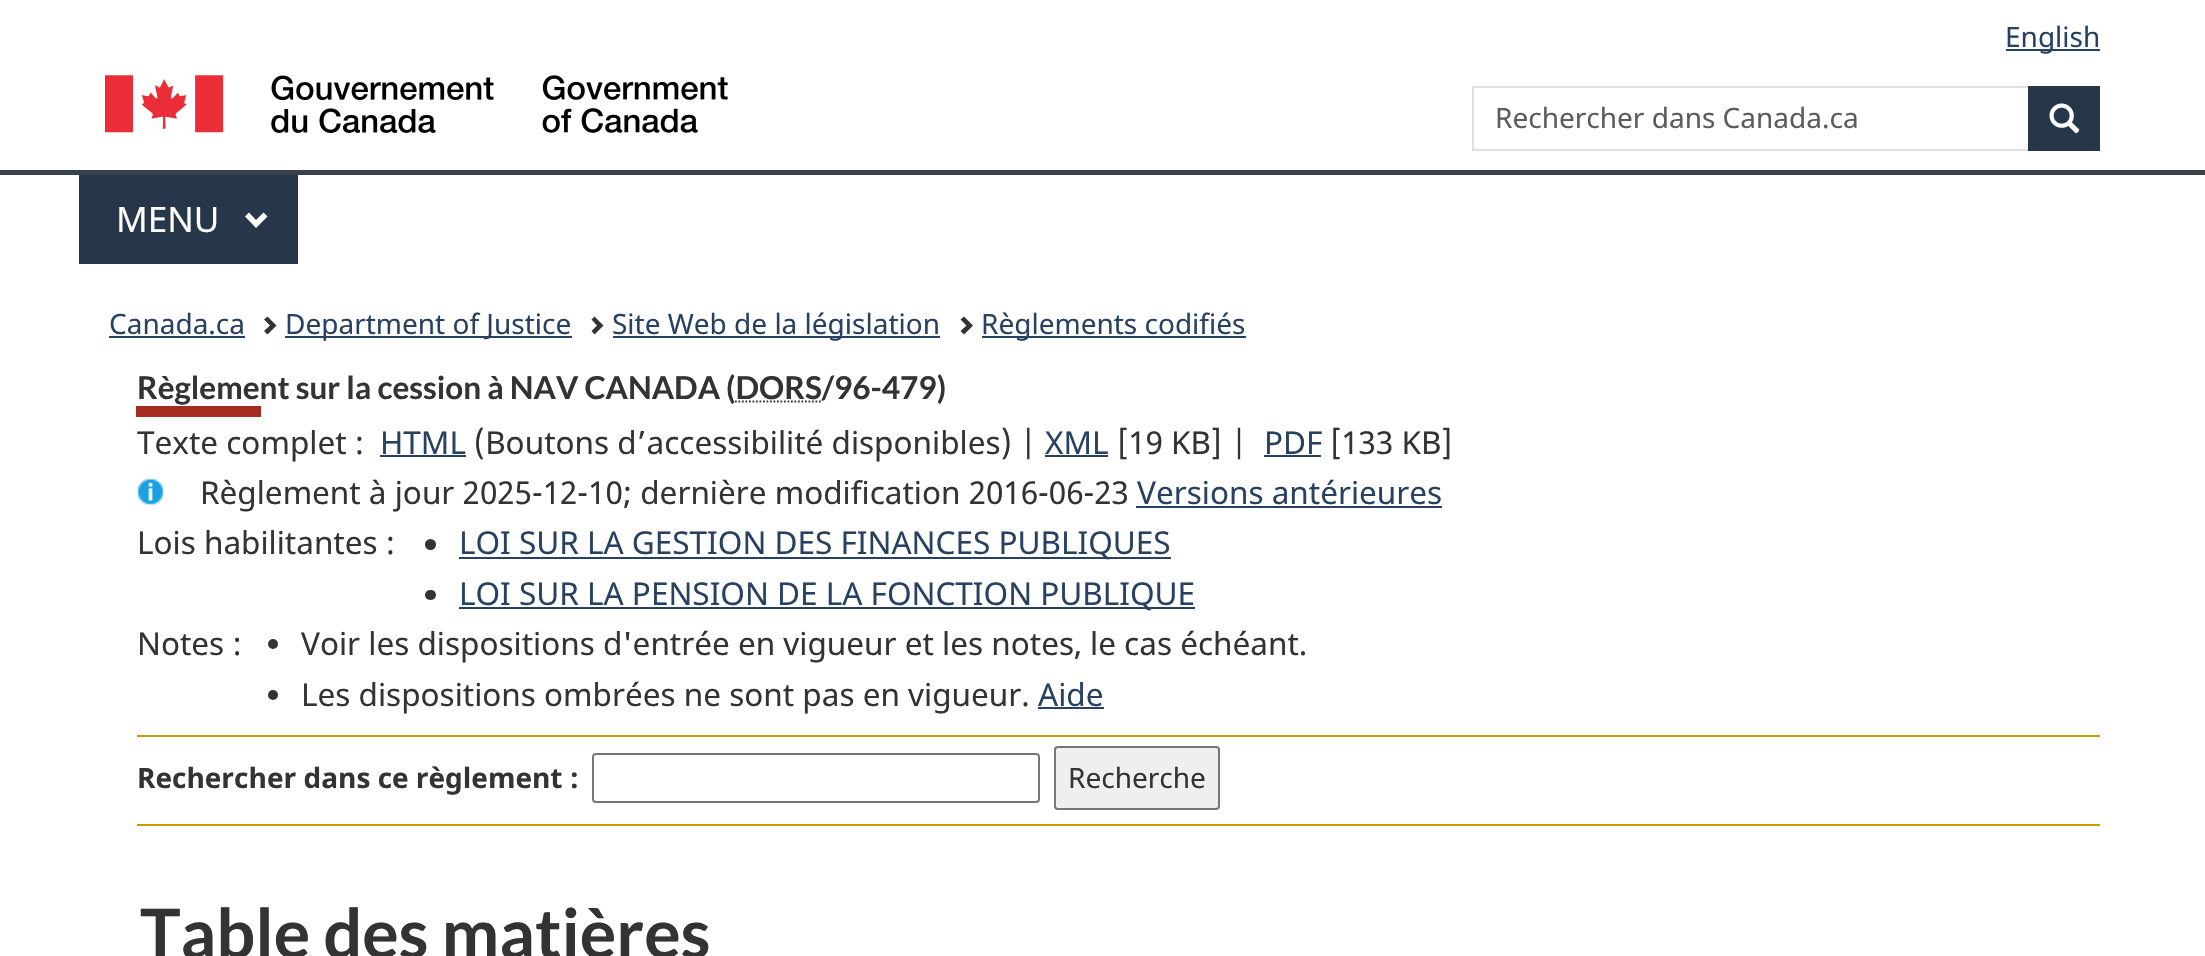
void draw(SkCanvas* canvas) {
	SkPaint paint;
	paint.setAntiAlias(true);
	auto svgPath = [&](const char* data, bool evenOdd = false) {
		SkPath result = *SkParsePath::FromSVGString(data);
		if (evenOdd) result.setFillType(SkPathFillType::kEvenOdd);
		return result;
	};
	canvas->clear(0xffffffff);
	paint.setColor(0xff284162);
	canvas->drawRect(SkRect::MakeXYWH(2006, 49, 94, 2), paint);
	SkFont f1(fontMgr->matchFamilyStyle("Noto Sans", SkFontStyle::Normal()), 28);
	f1.setSubpixel(true);
	canvas->drawString("English", 2005, 47, f1, paint);
	canvas->drawImageRect(SkImages::DeferredFromEncodedData(SkData::MakeFromFileName("img1.png")), SkRect::MakeXYWH(105, 75, 623, 58), SkSamplingOptions());
	paint.setStroke(true);
	paint.setStrokeWidth(2);
	paint.setColor(0xffe0e0e0);
	canvas->drawRect(SkRect::MakeXYWH(1473, 87, 626, 63), paint);
	paint.setStroke(false);
	paint.setColor(0xff5c5c5c);
	canvas->drawString("Rechercher dans Canada.ca", 1495, 128, f1, paint);
	paint.setColor(0xff26374a);
	canvas->drawRect(SkRect::MakeXYWH(2028, 86, 72, 65), paint);
	canvas->drawImageRect(SkImages::DeferredFromEncodedData(SkData::MakeFromFileName("img2.png")), SkRect::MakeXYWH(2049, 103, 31, 31), SkSamplingOptions());
	paint.setColor(0xff38414d);
	canvas->drawRect(SkRect::MakeXYWH(0, 170, 2205, 5), paint);
	paint.setColor(0xff26374a);
	canvas->drawRect(SkRect::MakeXYWH(79, 175, 219, 89), paint);
	SkFont f2(fontMgr->matchFamilyStyle("Noto Sans", SkFontStyle::Normal()), 35);
	f2.setSubpixel(true);
	paint.setColor(0xffffffff);
	canvas->drawString("MENU", 116, 232, f2, paint);
	canvas->drawPath(svgPath("M267.5 216.5L256 228L245 216.5L249 212.5L256 220L263.5 212.5Z"), paint);
	paint.setColor(0xff284162);
	canvas->drawString("Canada.ca", 109, 334, f1, paint);
	canvas->drawRect(SkRect::MakeXYWH(109, 336, 136, 2), paint);
	paint.setColor(0xff333333);
	canvas->drawPath(svgPath("M276.5 325.5L267.5 334.5L264 331L270 325.5L264 319.5L267.5 316.5Z"), paint);
	paint.setColor(0xff284162);
	canvas->drawRect(SkRect::MakeXYWH(285, 336, 287, 2), paint);
	canvas->drawString("Department of Justice", 285, 334, f1, paint);
	paint.setColor(0xff333333);
	canvas->drawPath(svgPath("M603.5 325.5L594.5 334.5L591.5 331L597 325.5L591.5 319.5L594.5 316.5Z"), paint);
	paint.setColor(0xff284162);
	canvas->drawRect(SkRect::MakeXYWH(613, 336, 327, 2), paint);
	canvas->drawString("Site Web de la législation", 612, 334, f1, paint);
	paint.setColor(0xff333333);
	canvas->drawPath(svgPath("M973 325.5L964 334.5L960.5 331L966.5 325.5L960.5 319.5L964 316.5Z"), paint);
	paint.setColor(0xff284162);
	canvas->drawRect(SkRect::MakeXYWH(982, 336, 264, 2), paint);
	canvas->drawString("Règlements codifiés", 981, 334, f1, paint);
	paint.setColor(0xffa62a1e);
	canvas->drawRect(SkRect::MakeXYWH(136, 406, 125, 11), paint);
	SkFont f3(fontMgr->matchFamilyStyle("Lato", SkFontStyle::Bold()), 31.5);
	f3.setSubpixel(true);
	paint.setColor(0xff333333);
	canvas->drawString("Règlement sur la cession à NAV CANADA (DORS/96-479)", 137, 399, f3, paint);
	paint.setStroke(true);
	paint.setStrokeWidth(1.8);
	paint.setPathEffect(SkDashPathEffect::Make({{1.75f, 1.75f}}, 0));
	canvas->drawPath(svgPath("M735 401.5H821.5"), paint);
	paint.setPathEffect(nullptr);
	SkFont f4(fontMgr->matchFamilyStyle("Noto Sans", SkFontStyle::Normal()), 31.5);
	f4.setSubpixel(true);
	paint.setStroke(false);
	canvas->drawString("Texte complet :", 137, 454, f4, paint);
	paint.setColor(0xff284162);
	canvas->drawString("HTML", 380, 454, f4, paint);
	canvas->drawRect(SkRect::MakeXYWH(380, 455, 86, 2), paint);
	paint.setColor(0xff333333);
	canvas->drawString("(Boutons d’accessibilité disponibles) |", 474, 454, f4, paint);
	paint.setColor(0xff284162);
	canvas->drawString("XML", 1045, 454, f4, paint);
	canvas->drawRect(SkRect::MakeXYWH(1045, 455, 63, 2), paint);
	paint.setColor(0xff333333);
	canvas->drawString("[19 KB] |", 1117, 454, f4, paint);
	paint.setColor(0xff284162);
	canvas->drawString("PDF", 1264, 454, f4, paint);
	canvas->drawRect(SkRect::MakeXYWH(1264, 455, 57, 2), paint);
	paint.setColor(0xff333333);
	canvas->drawString("[133 KB]", 1330, 454, f4, paint);
	canvas->drawImageRect(SkImages::DeferredFromEncodedData(SkData::MakeFromFileName("img3.png")), SkRect::MakeXYWH(136, 478, 29, 28), SkSamplingOptions());
	canvas->drawString("Règlement à jour 2025-12-10; dernière modification 2016-06-23", 200, 504, f4, paint);
	paint.setColor(0xff284162);
	canvas->drawString("Versions antérieures", 1137, 504, f4, paint);
	canvas->drawRect(SkRect::MakeXYWH(1136, 506, 306, 2), paint);
	paint.setColor(0xff333333);
	canvas->drawString("Lois habilitantes :", 137, 554, f4, paint);
	canvas->drawCircle(430.5, 544.5, 5.5, paint);
	paint.setColor(0xff284162);
	canvas->drawRect(SkRect::MakeXYWH(459, 557, 712, 2), paint);
	canvas->drawString("LOI SUR LA GESTION DES FINANCES PUBLIQUES", 459, 554, f4, paint);
	paint.setColor(0xff333333);
	canvas->drawRoundRect(SkRect::MakeXYWH(425, 590, 11, 10), 5, 5, paint);
	paint.setColor(0xff284162);
	canvas->drawRect(SkRect::MakeXYWH(459, 607, 736, 2), paint);
	canvas->drawString("LOI SUR LA PENSION DE LA FONCTION PUBLIQUE", 459, 605, f4, paint);
	paint.setColor(0xff333333);
	canvas->drawString("Notes :", 137, 655, f4, paint);
	canvas->drawCircle(273, 644, 5, paint);
	canvas->drawString("Voir les dispositions d'entrée en vigueur et les notes, le cas échéant.", 301, 655, f4, paint);
	canvas->drawCircle(273, 695, 5, paint);
	canvas->drawString("Les dispositions ombrées ne sont pas en vigueur.", 301, 706, f4, paint);
	paint.setColor(0xff284162);
	canvas->drawString("Aide", 1038, 706, f4, paint);
	canvas->drawRect(SkRect::MakeXYWH(1038, 707, 66, 2), paint);
	paint.setColor(0xffcc9900);
	canvas->drawRect(SkRect::MakeXYWH(137, 735, 1963, 2), paint);
	SkFont f5(fontMgr->matchFamilyStyle("Noto Sans", SkFontStyle::Bold()), 28);
	f5.setSubpixel(true);
	paint.setColor(0xff333333);
	canvas->drawString("Rechercher dans ce règlement :", 137, 788, f5, paint);
	paint.setStroke(true);
	paint.setStrokeWidth(2);
	paint.setColor(0xff767676);
	canvas->drawRoundRect(SkRect::MakeXYWH(593, 754, 446, 48), 3, 3, paint);
	paint.setStroke(false);
	paint.setColor(0xffefefef);
	canvas->drawRoundRect(SkRect::MakeXYWH(1055, 747, 164, 62), 3, 3, paint);
	paint.setStroke(true);
	paint.setColor(0xff767676);
	canvas->drawRoundRect(SkRect::MakeXYWH(1055, 747, 164, 62), 3, 3, paint);
	paint.setStroke(false);
	paint.setColor(0xff333333);
	canvas->drawString("Recherche", 1068, 788, f1, paint);
	paint.setColor(0xffcc9900);
	canvas->drawRect(SkRect::MakeXYWH(137, 824, 1963, 2), paint);
	SkFont f6(fontMgr->matchFamilyStyle("Lato", SkFontStyle::Bold()), 68.25);
	f6.setSubpixel(true);
	paint.setColor(0xff333333);
	canvas->drawString("Table des matières", 140, 958, f6, paint);
}
